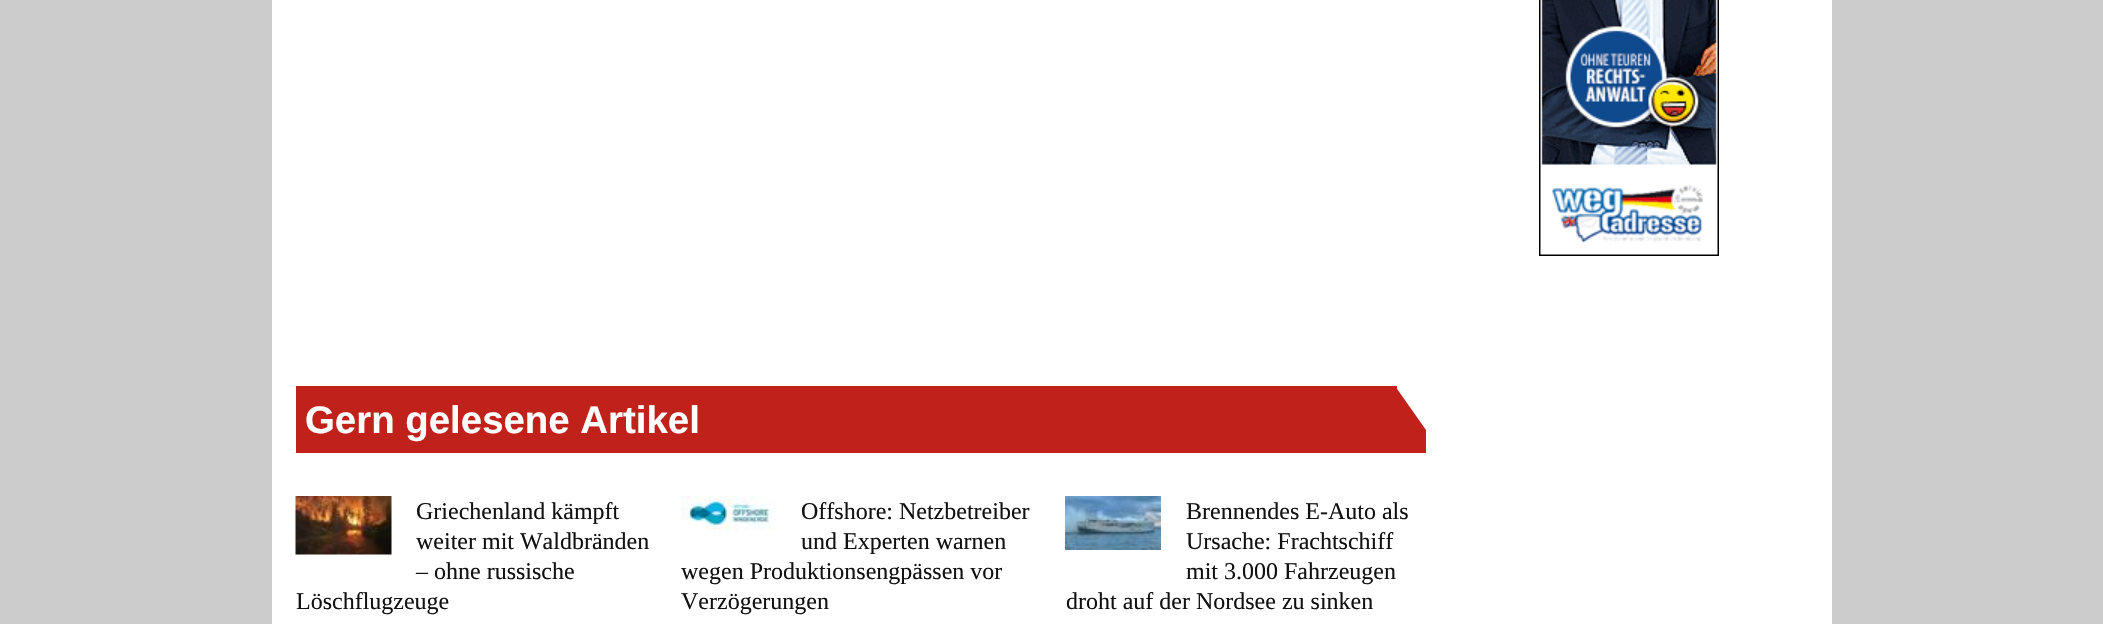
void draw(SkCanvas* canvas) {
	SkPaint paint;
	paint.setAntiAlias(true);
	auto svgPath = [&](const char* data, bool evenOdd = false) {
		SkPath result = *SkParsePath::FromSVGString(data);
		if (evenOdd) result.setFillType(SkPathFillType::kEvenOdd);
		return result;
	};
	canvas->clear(0xffcccccc);
	paint.setColor(0xffffffff);
	canvas->drawRect(SkRect::MakeXYWH(272, 0, 1560, 624), paint);
	canvas->drawImageRect(SkImages::DeferredFromEncodedData(SkData::MakeFromFileName("img1.png")), SkRect::MakeXYWH(1539, 0, 180, 256), SkSamplingOptions());
	paint.setColor(0xffc0211a);
	canvas->drawRect(SkRect::MakeXYWH(296, 386, 1101, 67), paint);
	SkFont f1(fontMgr->matchFamilyStyle("Liberation Sans", SkFontStyle::Bold()), 38.4);
	f1.setSubpixel(true);
	paint.setColor(0xffffffff);
	canvas->drawString("Gern gelesene Artikel", 305, 433, f1, paint);
	paint.setColor(0xffc0211a);
	canvas->drawPath(svgPath("M1395 453V386L1426 430V453Z"), paint);
	canvas->drawImageRect(SkImages::DeferredFromEncodedData(SkData::MakeFromFileName("img2.png")), SkRect::MakeXYWH(295, 496, 97, 59), SkSamplingOptions());
	SkFont f2(fontMgr->matchFamilyStyle("Liberation Serif", SkFontStyle::Normal()), 24);
	f2.setSubpixel(true);
	paint.setColor(0xff111111);
	canvas->drawString("Griechenland kämpft", 416, 519, f2, paint);
	canvas->drawString("weiter mit Waldbränden", 416, 549, f2, paint);
	canvas->drawString("‒ ohne russische", 416, 579, f2, paint);
	canvas->drawString("Löschflugzeuge", 296, 609, f2, paint);
	canvas->drawImageRect(SkImages::DeferredFromEncodedData(SkData::MakeFromFileName("img3.png")), SkRect::MakeXYWH(681, 496, 96, 35), SkSamplingOptions());
	canvas->drawString("Offshore: Netzbetreiber", 801, 519, f2, paint);
	canvas->drawString("und Experten warnen", 801, 549, f2, paint);
	canvas->drawString("wegen Produktionsengpässen vor", 681, 579, f2, paint);
	canvas->drawString("Verzögerungen", 681, 609, f2, paint);
	canvas->drawImageRect(SkImages::DeferredFromEncodedData(SkData::MakeFromFileName("img4.png")), SkRect::MakeXYWH(1065, 496, 96, 54), SkSamplingOptions());
	canvas->drawString("Brennendes E-Auto als", 1186, 519, f2, paint);
	canvas->drawString("Ursache: Frachtschiff", 1186, 549, f2, paint);
	canvas->drawString("mit 3.000 Fahrzeugen", 1186, 579, f2, paint);
	canvas->drawString("droht auf der Nordsee zu sinken", 1066, 609, f2, paint);
}
